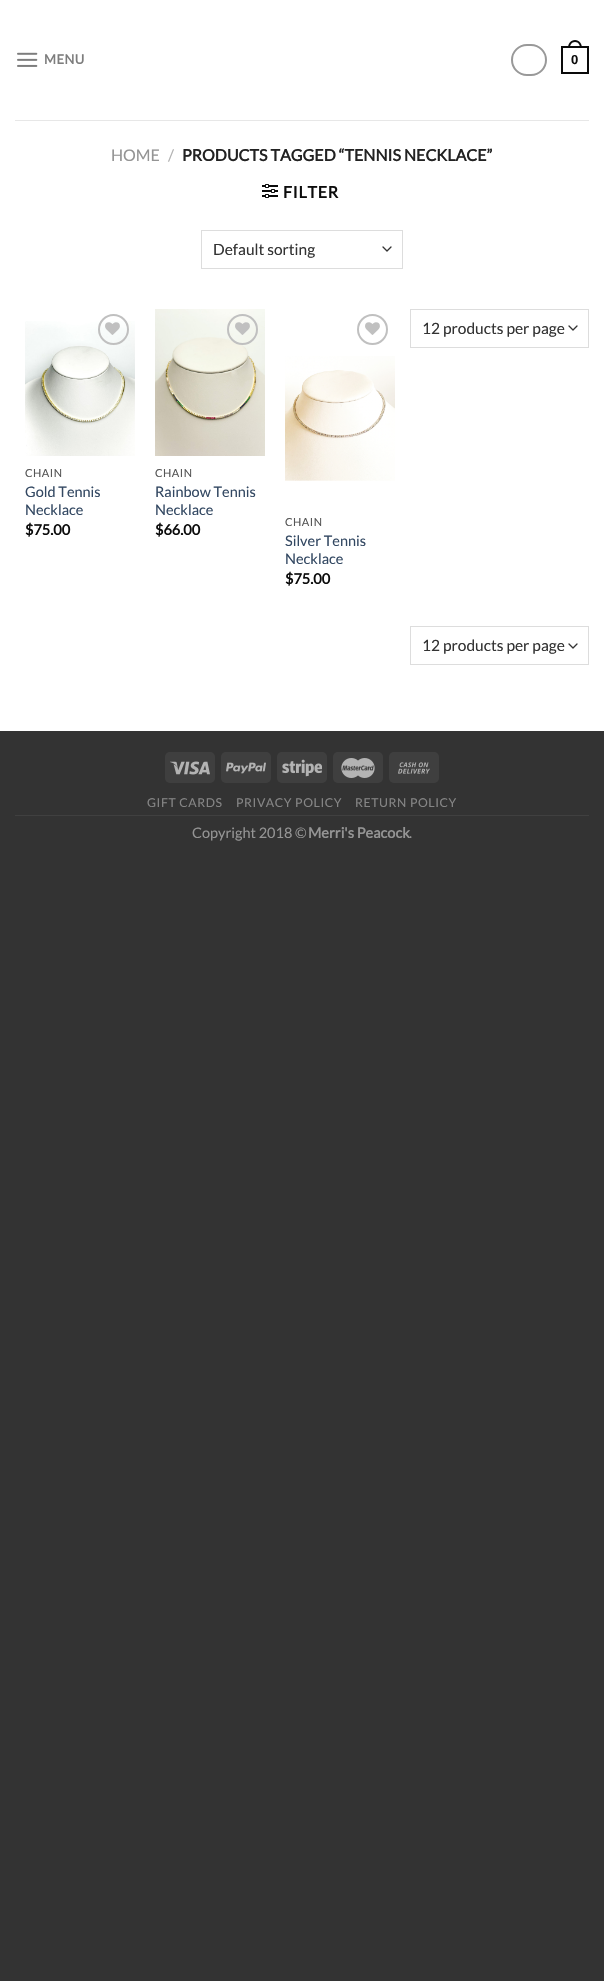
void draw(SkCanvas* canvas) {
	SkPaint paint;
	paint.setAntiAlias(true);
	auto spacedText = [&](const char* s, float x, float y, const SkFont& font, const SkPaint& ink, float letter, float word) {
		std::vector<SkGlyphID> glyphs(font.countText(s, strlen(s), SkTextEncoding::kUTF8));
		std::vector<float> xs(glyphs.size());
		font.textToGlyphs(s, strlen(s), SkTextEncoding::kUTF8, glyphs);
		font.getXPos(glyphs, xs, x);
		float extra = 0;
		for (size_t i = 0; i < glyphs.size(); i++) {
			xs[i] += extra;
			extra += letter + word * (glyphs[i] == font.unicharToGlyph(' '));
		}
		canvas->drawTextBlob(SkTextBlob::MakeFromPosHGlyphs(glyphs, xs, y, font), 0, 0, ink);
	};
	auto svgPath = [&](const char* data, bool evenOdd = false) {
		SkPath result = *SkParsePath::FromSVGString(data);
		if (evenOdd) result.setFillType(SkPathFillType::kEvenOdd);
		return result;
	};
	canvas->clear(0xff333333);
	paint.setColor(0xffffffff);
	canvas->drawRect(SkRect::MakeXYWH(0, 0, 604, 731), paint);
	canvas->drawImageRect(SkImages::DeferredFromEncodedData(SkData::MakeFromFileName("img1.png")), SkRect::MakeXYWH(17, 52, 21, 15), SkSamplingOptions());
	SkFont f1(fontMgr->matchFamilyStyle("Lato", SkFontStyle::Bold()), 13);
	f1.setSubpixel(true);
	paint.setColor(0xff7d7d7d);
	spacedText("MENU", 44, 64, f1, paint, 0.5, 0);
	paint.setStroke(true);
	paint.setStrokeWidth(2);
	paint.setColor(0xff999999);
	canvas->drawRoundRect(SkRect::MakeXYWH(512, 45, 34, 30), 15, 15, paint);
	paint.setColor(0xff0a0a0a);
	canvas->drawRect(SkRect::MakeXYWH(562, 47, 26, 26), paint);
	paint.setStroke(false);
	canvas->drawPath(svgPath("M575 40C579.5 40 582 44 582 48H568C568 44 570.5 40 575 40ZM575 42C578.5 42 580 45 580 48H570C570 45 571.5 42 575 42Z", true), paint);
	SkFont f2(fontMgr->matchFamilyStyle("Liberation Sans", SkFontStyle::Bold()), 13);
	f2.setSubpixel(true);
	paint.setColor(0xff0c0c0c);
	canvas->drawString("0", 571, 64, f2, paint);
	paint.setColor(0xffe7e7e7);
	canvas->drawRect(SkRect::MakeXYWH(15, 120, 574, 1), paint);
	SkFont f3(fontMgr->matchFamilyStyle("Lato", SkFontStyle::Normal()), 16);
	f3.setSubpixel(true);
	paint.setColor(0xff949494);
	canvas->drawString("HOME", 111, 161, f3, paint);
	paint.setColor(0xffb2b2b2);
	canvas->drawString("/", 168, 161, f3, paint);
	SkFont f4(fontMgr->matchFamilyStyle("Lato", SkFontStyle::Bold()), 16);
	f4.setSubpixel(true);
	paint.setColor(0xff222222);
	canvas->drawString("PRODUCTS TAGGED “TENNIS NECKLACE”", 182, 161, f4, paint);
	canvas->drawImageRect(SkImages::DeferredFromEncodedData(SkData::MakeFromFileName("img2.png")), SkRect::MakeXYWH(262, 184, 16, 14), SkSamplingOptions());
	paint.setColor(0xff0c0c0c);
	spacedText("FILTER", 283, 198, f4, paint, 0.75, 0);
	paint.setStroke(true);
	paint.setStrokeWidth(1.3);
	paint.setStrokeCap(SkPaint::kRound_Cap);
	paint.setStrokeJoin(SkPaint::kRound_Join);
	paint.setColor(0xff333333);
	canvas->drawPath(svgPath("M383 247L387 251L391 247"), paint);
	paint.setStrokeWidth(1);
	paint.setStrokeCap(SkPaint::kButt_Cap);
	paint.setStrokeJoin(SkPaint::kMiter_Join);
	paint.setColor(0xffdddddd);
	canvas->drawRect(SkRect::MakeXYWH(201.5, 230.5, 201, 38), paint);
	SkFont f5(fontMgr->matchFamilyStyle("Lato", SkFontStyle::Normal()), 15.5);
	f5.setSubpixel(true);
	paint.setStroke(false);
	paint.setColor(0xff333333);
	canvas->drawString("Default sorting", 213, 255, f5, paint);
	paint.setStroke(true);
	paint.setStrokeWidth(1.3);
	paint.setStrokeCap(SkPaint::kRound_Cap);
	paint.setStrokeJoin(SkPaint::kRound_Join);
	canvas->drawPath(svgPath("M569 326L573 330L577 326"), paint);
	paint.setStrokeWidth(1);
	paint.setStrokeCap(SkPaint::kButt_Cap);
	paint.setStrokeJoin(SkPaint::kMiter_Join);
	paint.setColor(0xffdddddd);
	canvas->drawRect(SkRect::MakeXYWH(410.5, 309.5, 178, 38), paint);
	paint.setStroke(false);
	paint.setColor(0xff333333);
	canvas->drawString("12 products per page", 422, 334, f5, paint);
	canvas->drawImageRect(SkImages::DeferredFromEncodedData(SkData::MakeFromFileName("img4.png")), SkRect::MakeXYWH(25, 321, 110, 135), SkSamplingOptions());
	paint.setStroke(true);
	paint.setStrokeWidth(2);
	paint.setColor(0xffc0c0c0);
	canvas->drawCircle(113.5, 329.5, 14.5, paint);
	canvas->drawImageRect(SkImages::DeferredFromEncodedData(SkData::MakeFromFileName("img3.png")), SkRect::MakeXYWH(105, 322, 15, 13), SkSamplingOptions());
	SkFont f6(fontMgr->matchFamilyStyle("Lato", SkFontStyle::Normal()), 11);
	f6.setSubpixel(true);
	paint.setStroke(false);
	paint.setColor(0xff555555);
	spacedText("CHAIN", 25, 477, f6, paint, 0.5, 0);
	SkFont f7(fontMgr->matchFamilyStyle("Lato", SkFontStyle::Normal()), 14.5);
	f7.setSubpixel(true);
	paint.setColor(0xff334862);
	canvas->drawString("Gold Tennis", 25, 497, f7, paint);
	canvas->drawString("Necklace", 25, 515, f7, paint);
	SkFont f8(fontMgr->matchFamilyStyle("Lato", SkFontStyle::Bold()), 14.5);
	f8.setSubpixel(true);
	paint.setColor(0xff0c0c0c);
	canvas->drawString("$75.00", 25, 535, f8, paint);
	canvas->drawImageRect(SkImages::DeferredFromEncodedData(SkData::MakeFromFileName("img5.png")), SkRect::MakeXYWH(155, 309, 110, 147), SkSamplingOptions());
	paint.setStroke(true);
	paint.setColor(0xffc0c0c0);
	canvas->drawCircle(242.5, 329.5, 14.5, paint);
	canvas->drawImageRect(SkImages::DeferredFromEncodedData(SkData::MakeFromFileName("img6.png")), SkRect::MakeXYWH(235, 322, 15, 13), SkSamplingOptions());
	paint.setStroke(false);
	paint.setColor(0xff555555);
	spacedText("CHAIN", 155, 477, f6, paint, 0.5, 0);
	paint.setColor(0xff334862);
	canvas->drawString("Rainbow Tennis", 155, 497, f7, paint);
	canvas->drawString("Necklace", 155, 515, f7, paint);
	paint.setColor(0xff0c0c0c);
	canvas->drawString("$66.00", 155, 535, f8, paint);
	paint.setStroke(true);
	paint.setColor(0xffc0c0c0);
	canvas->drawCircle(372.5, 329.5, 14.5, paint);
	canvas->drawImageRect(SkImages::DeferredFromEncodedData(SkData::MakeFromFileName("img7.png")), SkRect::MakeXYWH(365, 322, 15, 13), SkSamplingOptions());
	canvas->drawImageRect(SkImages::DeferredFromEncodedData(SkData::MakeFromFileName("img8.png")), SkRect::MakeXYWH(285, 356, 110, 125), SkSamplingOptions());
	paint.setStroke(false);
	paint.setColor(0xff555555);
	spacedText("CHAIN", 285, 526, f6, paint, 0.5, 0);
	paint.setColor(0xff334862);
	canvas->drawString("Silver Tennis", 285, 546, f7, paint);
	canvas->drawString("Necklace", 285, 564, f7, paint);
	paint.setColor(0xff0c0c0c);
	canvas->drawString("$75.00", 285, 584, f8, paint);
	paint.setStroke(true);
	paint.setStrokeWidth(1.3);
	paint.setStrokeCap(SkPaint::kRound_Cap);
	paint.setStrokeJoin(SkPaint::kRound_Join);
	paint.setColor(0xff333333);
	canvas->drawPath(svgPath("M569 644L573 648L577 644"), paint);
	paint.setStrokeWidth(1);
	paint.setStrokeCap(SkPaint::kButt_Cap);
	paint.setStrokeJoin(SkPaint::kMiter_Join);
	paint.setColor(0xffdddddd);
	canvas->drawRect(SkRect::MakeXYWH(410.5, 626.5, 178, 38), paint);
	paint.setStroke(false);
	paint.setColor(0xff333333);
	canvas->drawString("12 products per page", 422, 651, f5, paint);
	paint.setColor(0xff3f3f3f);
	canvas->drawRoundRect(SkRect::MakeXYWH(165, 752, 50, 31), 5, 5, paint);
	canvas->drawImageRect(SkImages::DeferredFromEncodedData(SkData::MakeFromFileName("img9.png")), SkRect::MakeXYWH(170, 761, 40, 14), SkSamplingOptions());
	canvas->drawRoundRect(SkRect::MakeXYWH(221, 752, 50, 31), 5, 5, paint);
	canvas->drawImageRect(SkImages::DeferredFromEncodedData(SkData::MakeFromFileName("img10.png")), SkRect::MakeXYWH(226, 762, 40, 12), SkSamplingOptions());
	canvas->drawRoundRect(SkRect::MakeXYWH(277, 752, 50, 31), 5, 5, paint);
	canvas->drawImageRect(SkImages::DeferredFromEncodedData(SkData::MakeFromFileName("img11.png")), SkRect::MakeXYWH(282, 759, 40, 18), SkSamplingOptions());
	canvas->drawRoundRect(SkRect::MakeXYWH(333, 752, 50, 31), 5, 5, paint);
	canvas->drawImageRect(SkImages::DeferredFromEncodedData(SkData::MakeFromFileName("img12.png")), SkRect::MakeXYWH(341, 758, 34, 20), SkSamplingOptions());
	canvas->drawRoundRect(SkRect::MakeXYWH(389, 752, 50, 31), 5, 5, paint);
	canvas->drawImageRect(SkImages::DeferredFromEncodedData(SkData::MakeFromFileName("img13.png")), SkRect::MakeXYWH(398, 762, 32, 12), SkSamplingOptions());
	paint.setColor(0xff404040);
	canvas->drawRect(SkRect::MakeXYWH(15, 815, 574, 1), paint);
	SkFont f9(fontMgr->matchFamilyStyle("Lato", SkFontStyle::Normal()), 12.25);
	f9.setSubpixel(true);
	paint.setColor(0xff858585);
	spacedText("GIFT CARDS", 147, 807, f9, paint, 0.6, 0);
	spacedText("PRIVACY POLICY", 236, 807, f9, paint, 0.6, 0);
	spacedText("RETURN POLICY", 355, 807, f9, paint, 0.6, 0);
	paint.setColor(0xff949494);
	canvas->drawString("Copyright 2018 ©", 192, 838, f7, paint);
	canvas->drawString("Merri's Peacock", 308, 838, f8, paint);
	canvas->drawString(".", 409, 838, f7, paint);
}
